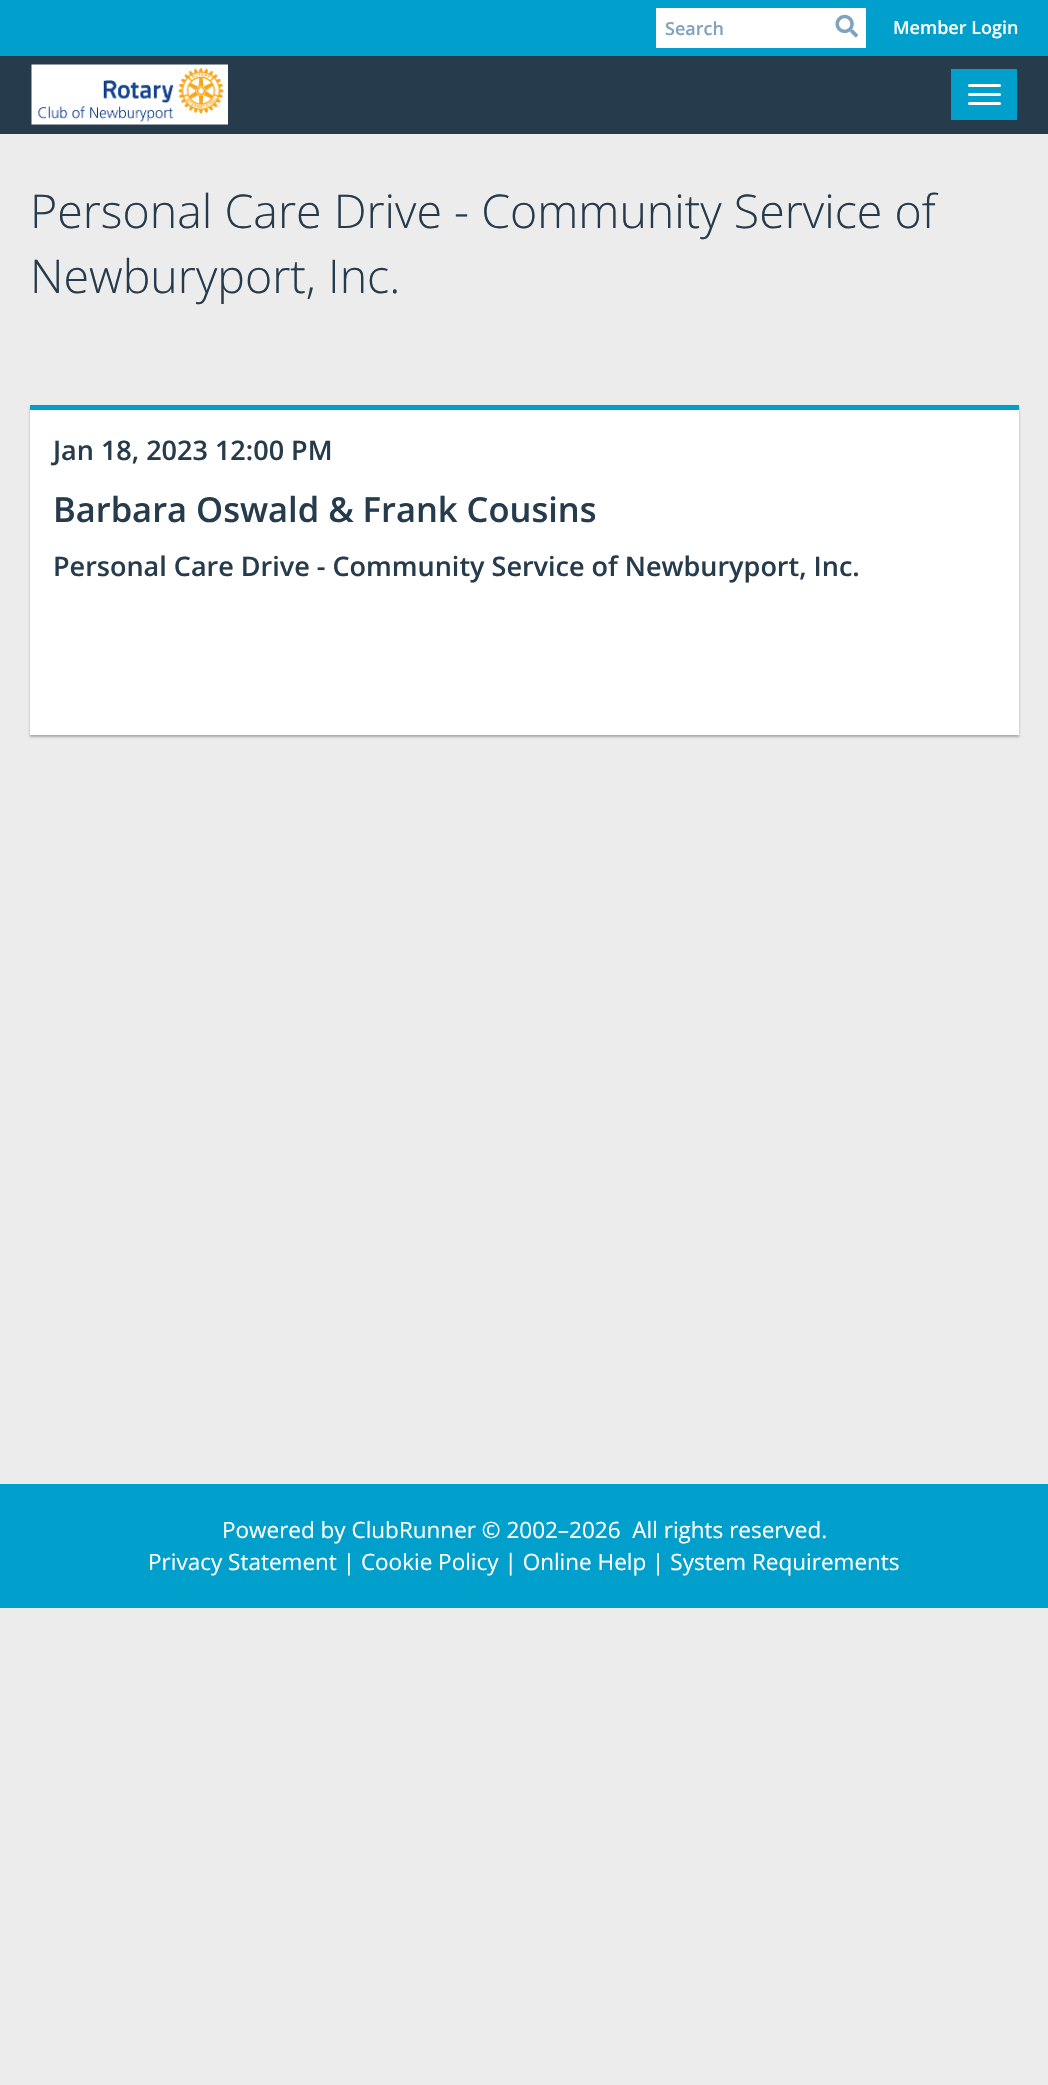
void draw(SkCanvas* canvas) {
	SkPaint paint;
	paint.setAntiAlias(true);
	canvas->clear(0xffececec);
	paint.setColor(0xff019fcb);
	canvas->drawRect(SkRect::MakeXYWH(0, 0, 1048, 56), paint);
	paint.setColor(0xffffffff);
	canvas->drawRect(SkRect::MakeXYWH(656, 8, 210, 40), paint);
	SkFont f1(fontMgr->matchFamilyStyle("Open Sans", SkFontStyle(600, SkFontStyle::kNormal_Width, SkFontStyle::kUpright_Slant)), 18);
	f1.setSubpixel(true);
	paint.setColor(0xff7fa2bf);
	canvas->drawString("Search", 665, 35, f1, paint);
	canvas->drawImageRect(SkImages::DeferredFromEncodedData(SkData::MakeFromFileName("img1.png")), SkRect::MakeXYWH(835, 14, 23, 24), SkSamplingOptions());
	paint.setColor(0xffffffff);
	canvas->drawString("Member Login", 893, 34, f1, paint);
	paint.setColor(0xff263b4c);
	canvas->drawRect(SkRect::MakeXYWH(0, 56, 1048, 78), paint);
	canvas->drawImageRect(SkImages::DeferredFromEncodedData(SkData::MakeFromFileName("img2.png")), SkRect::MakeXYWH(31, 64, 197, 61), SkSamplingOptions());
	paint.setColor(0xff019fcb);
	canvas->drawRect(SkRect::MakeXYWH(951, 69, 66, 51), paint);
	paint.setColor(0xffffffff);
	canvas->drawRoundRect(SkRect::MakeXYWH(968, 84, 33, 3), 1.5, 1.5, paint);
	canvas->drawRoundRect(SkRect::MakeXYWH(968, 93, 33, 3), 1.5, 1.5, paint);
	canvas->drawRoundRect(SkRect::MakeXYWH(968, 102, 33, 3), 1.5, 1.5, paint);
	SkFont f2(fontMgr->matchFamilyStyle("Open Sans", SkFontStyle(300, SkFontStyle::kNormal_Width, SkFontStyle::kUpright_Slant)), 46.5);
	f2.setSubpixel(true);
	paint.setColor(0xff263b4c);
	canvas->drawString("Personal Care Drive - Community Service of", 30, 228, f2, paint);
	canvas->drawString("Newburyport, Inc.", 30, 293, f2, paint);
	paint.setColor(0x26000000);
	paint.setMaskFilter(SkMaskFilter::MakeBlur(kNormal_SkBlurStyle, 1));
	canvas->drawRect(SkRect::MakeXYWH(30, 407, 989, 330), paint);
	paint.setMaskFilter(nullptr);
	paint.setMaskFilter(SkMaskFilter::MakeBlur(kNormal_SkBlurStyle, 1));
	canvas->drawRect(SkRect::MakeXYWH(30, 407, 989, 330), paint);
	paint.setMaskFilter(nullptr);
	paint.setColor(0xffffffff);
	canvas->drawRect(SkRect::MakeXYWH(30, 410, 989, 325), paint);
	paint.setColor(0xff019fcb);
	canvas->drawRect(SkRect::MakeXYWH(30, 405, 989, 5), paint);
	SkFont f3(fontMgr->matchFamilyStyle("Open Sans", SkFontStyle(600, SkFontStyle::kNormal_Width, SkFontStyle::kUpright_Slant)), 27);
	f3.setSubpixel(true);
	paint.setColor(0xff263b4c);
	canvas->drawString("Jan 18, 2023 12:00 PM", 53, 460, f3, paint);
	SkFont f4(fontMgr->matchFamilyStyle("Open Sans", SkFontStyle(600, SkFontStyle::kNormal_Width, SkFontStyle::kUpright_Slant)), 34.5);
	f4.setSubpixel(true);
	canvas->drawString("Barbara Oswald & Frank Cousins", 53, 522, f4, paint);
	canvas->drawString("Personal Care Drive - Community Service of Newburyport, Inc.", 53, 576, f3, paint);
	paint.setColor(0xff019fcb);
	canvas->drawRect(SkRect::MakeXYWH(0, 1484, 1048, 124), paint);
	SkFont f5(fontMgr->matchFamilyStyle("Open Sans", SkFontStyle::Normal()), 22.5);
	f5.setSubpixel(true);
	paint.setColor(0xffffffff);
	canvas->drawString("Powered by ClubRunner © 2002–2026  All rights reserved.", 222, 1538, f5, paint);
	canvas->drawString("Privacy Statement | Cookie Policy | Online Help | System Requirements", 148, 1570, f5, paint);
}
